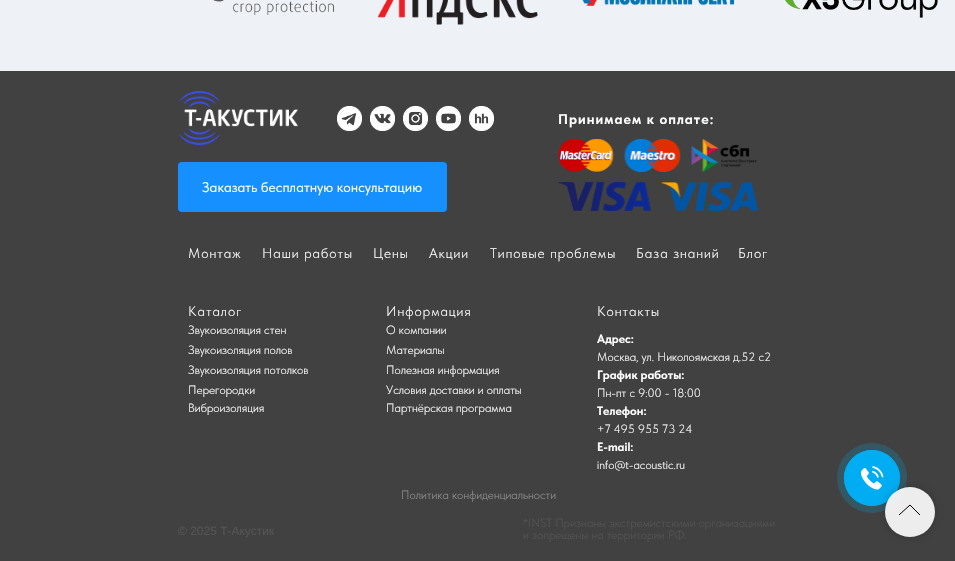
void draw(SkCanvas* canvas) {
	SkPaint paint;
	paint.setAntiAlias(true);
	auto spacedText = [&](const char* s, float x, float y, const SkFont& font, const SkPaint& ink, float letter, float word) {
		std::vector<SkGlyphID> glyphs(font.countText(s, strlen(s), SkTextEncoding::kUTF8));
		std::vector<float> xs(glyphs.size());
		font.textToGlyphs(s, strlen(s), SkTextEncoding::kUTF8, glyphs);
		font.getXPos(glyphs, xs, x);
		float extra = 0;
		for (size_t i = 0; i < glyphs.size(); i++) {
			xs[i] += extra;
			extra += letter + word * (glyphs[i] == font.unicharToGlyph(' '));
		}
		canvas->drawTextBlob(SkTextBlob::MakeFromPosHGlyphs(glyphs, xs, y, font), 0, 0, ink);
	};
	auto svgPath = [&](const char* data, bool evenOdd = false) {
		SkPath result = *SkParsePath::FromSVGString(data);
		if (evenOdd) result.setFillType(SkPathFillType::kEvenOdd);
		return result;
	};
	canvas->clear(0xffeef1f5);
	canvas->drawImageRect(SkImages::DeferredFromEncodedData(SkData::MakeFromFileName("img1.png")), SkRect::MakeXYWH(213, 0, 122, 15), SkSamplingOptions());
	canvas->drawImageRect(SkImages::DeferredFromEncodedData(SkData::MakeFromFileName("img2.png")), SkRect::MakeXYWH(378, 0, 160, 25), SkSamplingOptions());
	canvas->drawImageRect(SkImages::DeferredFromEncodedData(SkData::MakeFromFileName("img3.png")), SkRect::MakeXYWH(582, 0, 153, 6), SkSamplingOptions());
	canvas->drawImageRect(SkImages::DeferredFromEncodedData(SkData::MakeFromFileName("img4.png")), SkRect::MakeXYWH(785, 0, 153, 18), SkSamplingOptions());
	paint.setColor(0xff414141);
	canvas->drawRect(SkRect::MakeXYWH(0, 71, 955, 490), paint);
	canvas->drawImageRect(SkImages::DeferredFromEncodedData(SkData::MakeFromFileName("img5.png")), SkRect::MakeXYWH(178, 91, 120, 54), SkSamplingOptions());
	canvas->drawImageRect(SkImages::DeferredFromEncodedData(SkData::MakeFromFileName("img6.png")), SkRect::MakeXYWH(337, 106, 25, 25), SkSamplingOptions());
	canvas->drawImageRect(SkImages::DeferredFromEncodedData(SkData::MakeFromFileName("img7.png")), SkRect::MakeXYWH(370, 106, 25, 25), SkSamplingOptions());
	canvas->drawImageRect(SkImages::DeferredFromEncodedData(SkData::MakeFromFileName("img8.png")), SkRect::MakeXYWH(403, 106, 25, 25), SkSamplingOptions());
	canvas->drawImageRect(SkImages::DeferredFromEncodedData(SkData::MakeFromFileName("img9.png")), SkRect::MakeXYWH(436, 106, 25, 25), SkSamplingOptions());
	canvas->drawImageRect(SkImages::DeferredFromEncodedData(SkData::MakeFromFileName("img10.png")), SkRect::MakeXYWH(469, 106, 25, 25), SkSamplingOptions());
	SkFont f1(fontMgr->matchFamilyStyle("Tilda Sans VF", SkFontStyle::Bold()), 14);
	f1.setSubpixel(true);
	paint.setColor(0xffffffff);
	spacedText("Принимаем к оплате:", 558, 124, f1, paint, 1, 0);
	canvas->drawImageRect(SkImages::DeferredFromEncodedData(SkData::MakeFromFileName("img11.png")), SkRect::MakeXYWH(558, 139, 199, 33), SkSamplingOptions());
	paint.setColor(0xff168fff);
	canvas->drawRoundRect(SkRect::MakeXYWH(178, 162, 269, 50), 4, 4, paint);
	SkFont f2(fontMgr->matchFamilyStyle("Tilda Sans VF", SkFontStyle::Normal()), 14);
	f2.setSubpixel(true);
	paint.setColor(0xffffffff);
	canvas->drawString("Заказать бесплатную консультацию", 202, 192, f2, paint);
	canvas->drawImageRect(SkImages::DeferredFromEncodedData(SkData::MakeFromFileName("img12.png")), SkRect::MakeXYWH(558, 182, 200, 29), SkSamplingOptions());
	SkFont f3(fontMgr->matchFamilyStyle("Tilda Sans VF", SkFontStyle(300, SkFontStyle::kNormal_Width, SkFontStyle::kUpright_Slant)), 14);
	f3.setSubpixel(true);
	spacedText("Монтаж", 188, 258, f3, paint, 1, 0);
	spacedText("Наши работы", 262, 258, f3, paint, 1, 0);
	spacedText("Цены", 373, 258, f3, paint, 1, 0);
	spacedText("Акции", 429, 258, f3, paint, 1, 0);
	spacedText("Типовые проблемы", 490, 258, f3, paint, 1, 0);
	spacedText("База знаний", 636, 258, f3, paint, 1, 0);
	spacedText("Блог", 738, 258, f3, paint, 1, 0);
	spacedText("Каталог", 188, 316, f3, paint, 1, 0);
	spacedText("Информация", 386, 316, f3, paint, 1, 0);
	spacedText("Контакты", 597, 316, f3, paint, 1, 0);
	SkFont f4(fontMgr->matchFamilyStyle("Tilda Sans VF", SkFontStyle(300, SkFontStyle::kNormal_Width, SkFontStyle::kUpright_Slant)), 12);
	f4.setSubpixel(true);
	canvas->drawString("Звукоизоляция стен", 188, 334, f4, paint);
	canvas->drawString("О компании", 386, 334, f4, paint);
	canvas->drawString("Звукоизоляция полов", 188, 354, f4, paint);
	canvas->drawString("Материалы", 386, 354, f4, paint);
	SkFont f5(fontMgr->matchFamilyStyle("Tilda Sans VF", SkFontStyle::Bold()), 12);
	f5.setSubpixel(true);
	canvas->drawString("Адрес:", 597, 343, f5, paint);
	canvas->drawString("Москва, ул. Николоямская д.52 с2", 597, 361, f4, paint);
	canvas->drawString("График работы:", 597, 379, f5, paint);
	canvas->drawString("Пн-пт с 9:00 - 18:00", 597, 397, f4, paint);
	canvas->drawString("Телефон:", 597, 415, f5, paint);
	canvas->drawString("+7 495 955 73 24", 597, 433, f4, paint);
	canvas->drawString("E-mail:", 597, 451, f5, paint);
	canvas->drawString("info@t-acoustic.ru", 597, 469, f4, paint);
	canvas->drawString("Звукоизоляция потолков", 188, 374, f4, paint);
	canvas->drawString("Полезная информация", 386, 374, f4, paint);
	canvas->drawString("Перегородки", 188, 394, f4, paint);
	canvas->drawString("Условия доставки и оплаты", 386, 394, f4, paint);
	canvas->drawString("Виброизоляция", 188, 412, f4, paint);
	canvas->drawString("Партнёрская программа", 386, 412, f4, paint);
	paint.setColor(0xff909090);
	canvas->drawString("Политика конфиденциальности", 401, 499, f4, paint);
	SkFont f6(fontMgr->matchFamilyStyle("Liberation Sans", SkFontStyle::Normal()), 12);
	f6.setSubpixel(true);
	paint.setColor(0xff545454);
	canvas->drawString("© 2025 Т-Акустик", 178, 535, f6, paint);
	canvas->drawString("*INST Признаны экстремистскими организациями", 523, 527, f4, paint);
	canvas->drawString("и запрещены на территории РФ.", 523, 539, f4, paint);
	paint.setColor(0xff345764);
	canvas->drawCircle(872, 478, 35, paint);
	paint.setStroke(true);
	paint.setStrokeWidth(0.8);
	paint.setColor(0xff00adf2);
	canvas->drawCircle(872, 478, 27.6, paint);
	paint.setStroke(false);
	canvas->drawCircle(872, 478, 28, paint);
	canvas->drawImageRect(SkImages::DeferredFromEncodedData(SkData::MakeFromFileName("img13.png")), SkRect::MakeXYWH(860, 466, 24, 24), SkSamplingOptions());
	canvas->save();
	canvas->clipPath(svgPath("M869 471H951V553H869ZM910 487C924 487 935 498 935 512C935 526 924 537 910 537C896 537 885 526 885 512C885 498 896 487 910 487Z", true), true);
	paint.setColor(0x33000000);
	paint.setMaskFilter(SkMaskFilter::MakeBlur(kNormal_SkBlurStyle, 5));
	canvas->drawRoundRect(SkRect::MakeXYWH(885, 487, 50, 50), 25, 25, paint);
	paint.setMaskFilter(nullptr);
	canvas->restore();
	paint.setColor(0xe6ffffff);
	canvas->drawCircle(910, 512, 25, paint);
	paint.setStroke(true);
	paint.setStrokeWidth(1);
	paint.setColor(0xff000000);
	canvas->drawPath(svgPath("M899 515L910 505L920 515"), paint);
}
